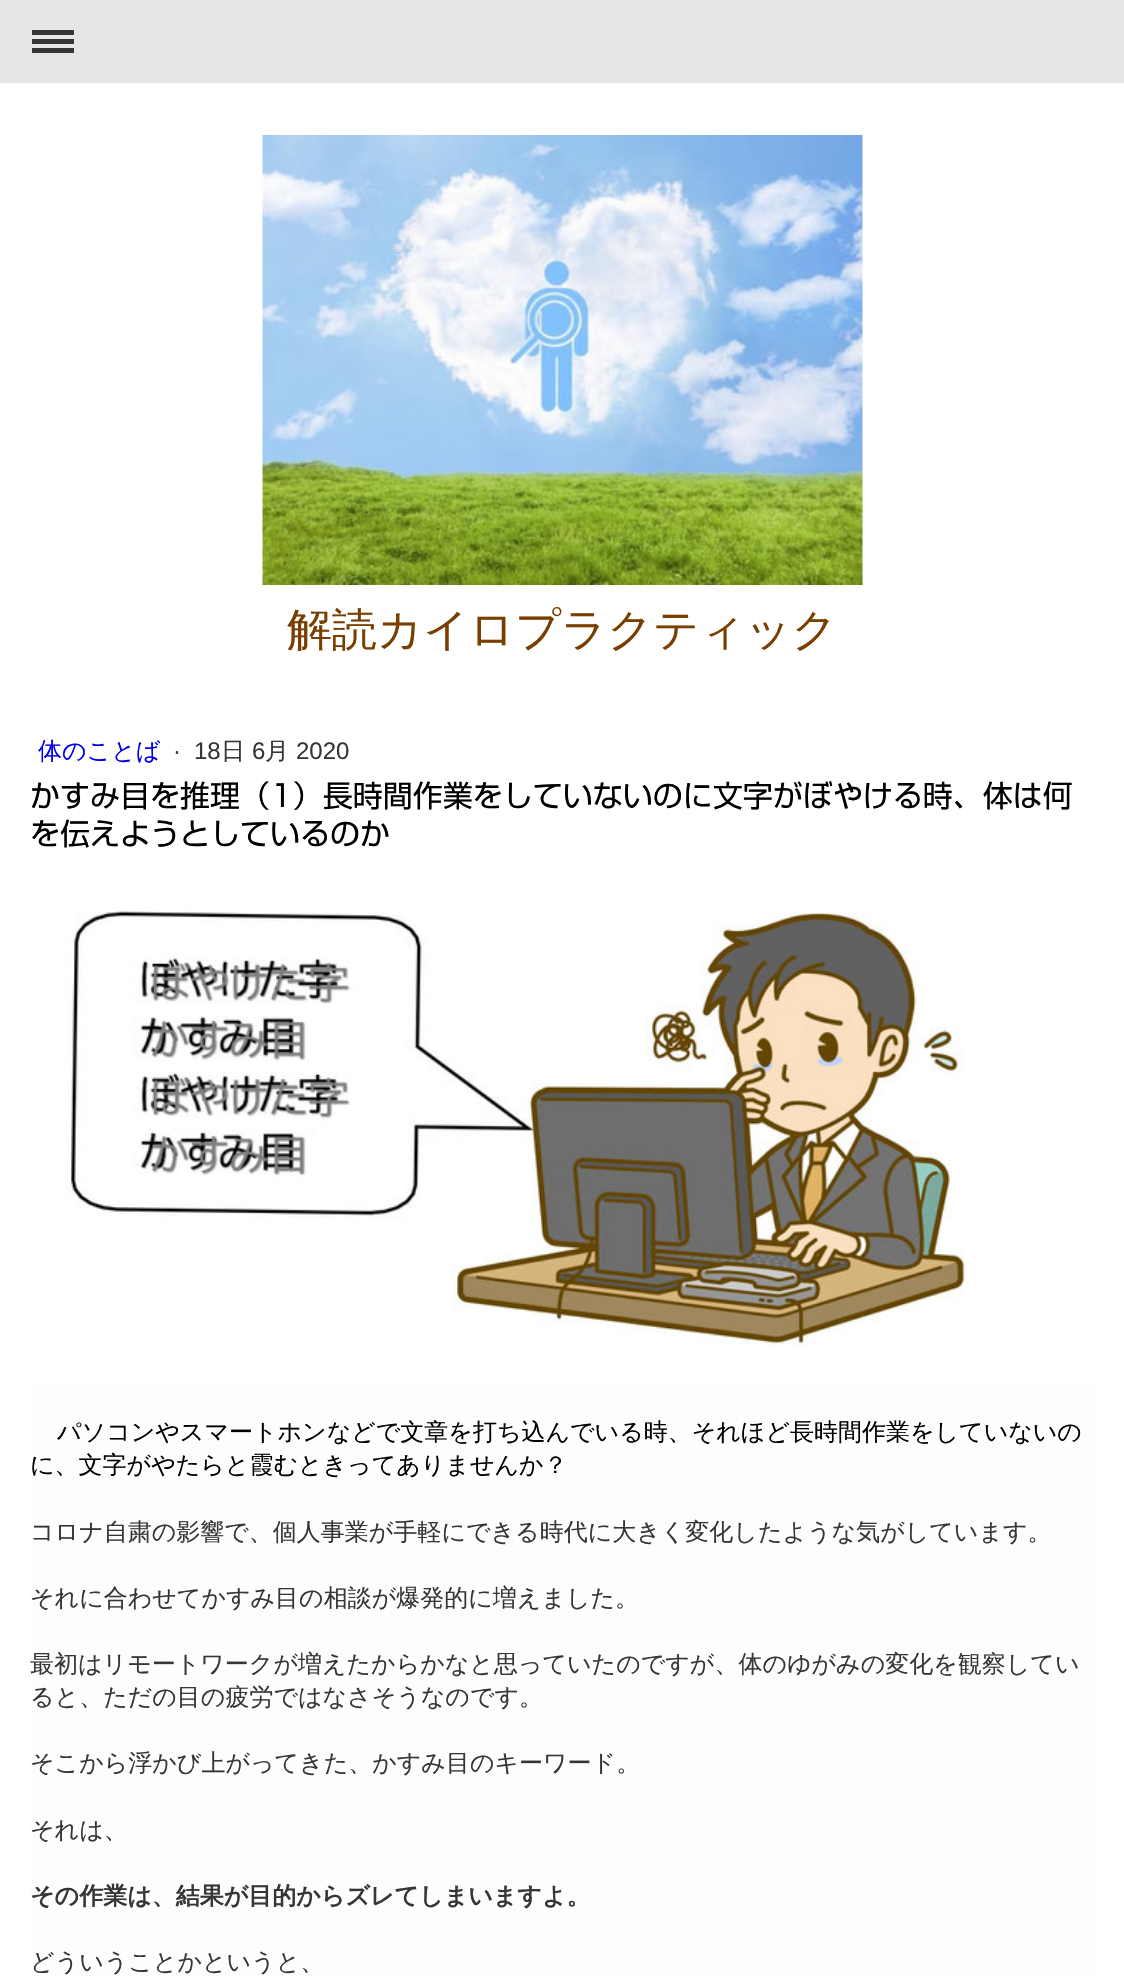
void draw(SkCanvas* canvas) {
	SkPaint paint;
	paint.setAntiAlias(true);
	canvas->clear(0xffffffff);
	paint.setColor(0xffe6e6e6);
	canvas->drawRect(SkRect::MakeXYWH(0, 0, 1124, 83), paint);
	paint.setColor(0xff363636);
	canvas->drawRect(SkRect::MakeXYWH(32, 39, 42, 5), paint);
	canvas->drawRect(SkRect::MakeXYWH(32, 30, 42, 5), paint);
	canvas->drawRect(SkRect::MakeXYWH(32, 48, 42, 5), paint);
	canvas->drawImageRect(SkImages::DeferredFromEncodedData(SkData::MakeFromFileName("img1.png")), SkRect::MakeXYWH(262, 135, 601, 450), SkSamplingOptions());
	SkFont f1(fontMgr->matchFamilyStyle("WenQuanYi Zen Hei", SkFontStyle(500, SkFontStyle::kNormal_Width, SkFontStyle::kUpright_Slant)), 45);
	f1.setSubpixel(true);
	paint.setColor(0xff793f00);
	canvas->drawString("解読カイロプラクティック", 287, 645, f1, paint);
	SkFont f2(fontMgr->matchFamilyStyle("WenQuanYi Zen Hei", SkFontStyle(500, SkFontStyle::kNormal_Width, SkFontStyle::kUpright_Slant)), 24);
	f2.setSubpixel(true);
	paint.setColor(0xff0000ee);
	canvas->drawString("体のことば", 38, 759, f2, paint);
	SkFont f3(fontMgr->matchFamilyStyle("Liberation Sans", SkFontStyle::Normal()), 24);
	f3.setSubpixel(true);
	paint.setColor(0xff363636);
	canvas->drawString("·", 173, 759, f3, paint);
	canvas->drawString("18", 194, 759, f3, paint);
	canvas->drawString("日", 221, 759, f2, paint);
	canvas->drawString("6", 252, 759, f3, paint);
	canvas->drawString("月", 265, 759, f2, paint);
	canvas->drawString("2020", 296, 759, f3, paint);
	SkFont f4(fontMgr->matchFamilyStyle("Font", SkFontStyle::Normal()), 30);
	f4.setSubpixel(true);
	paint.setColor(0xff000000);
	canvas->drawString("かすみ目を推理（1）長時間作業をしていないのに文字がぼやける時、体は何", 30, 807, f4, paint);
	canvas->drawString("を伝えようとしているのか", 30, 845, f4, paint);
	canvas->drawImageRect(SkImages::DeferredFromEncodedData(SkData::MakeFromFileName("img2.png")), SkRect::MakeXYWH(66, 910, 899, 436), SkSamplingOptions());
	paint.setColor(0xfffcfefc);
	canvas->drawRect(SkRect::MakeXYWH(30, 1383, 1065, 593), paint);
	paint.setColor(0xff000000);
	canvas->drawString("パソコンやスマートホンなどで文章を打ち込んでいる時、それほど長時間作業をしていないの", 57, 1440, f2, paint);
	canvas->drawString("に、文字がやたらと霞むときってありませんか？", 30, 1473, f2, paint);
	paint.setColor(0xff363636);
	canvas->drawString("コロナ自粛の影響で、個人事業が手軽にできる時代に大きく変化したような気がしています。", 30, 1540, f2, paint);
	canvas->drawString("それに合わせてかすみ目の相談が爆発的に増えました。", 30, 1606, f2, paint);
	canvas->drawString("最初はリモートワークが増えたからかなと思っていたのですが、体のゆがみの変化を観察してい", 30, 1672, f2, paint);
	canvas->drawString("ると、ただの目の疲労ではなさそうなのです。", 30, 1705, f2, paint);
	canvas->drawString("そこから浮かび上がってきた、かすみ目のキーワード。", 30, 1771, f2, paint);
	canvas->drawString("それは、", 30, 1838, f2, paint);
	SkFont f5(fontMgr->matchFamilyStyle("WenQuanYi Zen Hei", SkFontStyle::Bold()), 24);
	f5.setSubpixel(true);
	canvas->drawString("その作業は、結果が目的からズレてしまいますよ。", 30, 1904, f5, paint);
	canvas->drawString("どういうことかというと、", 30, 1970, f2, paint);
}
